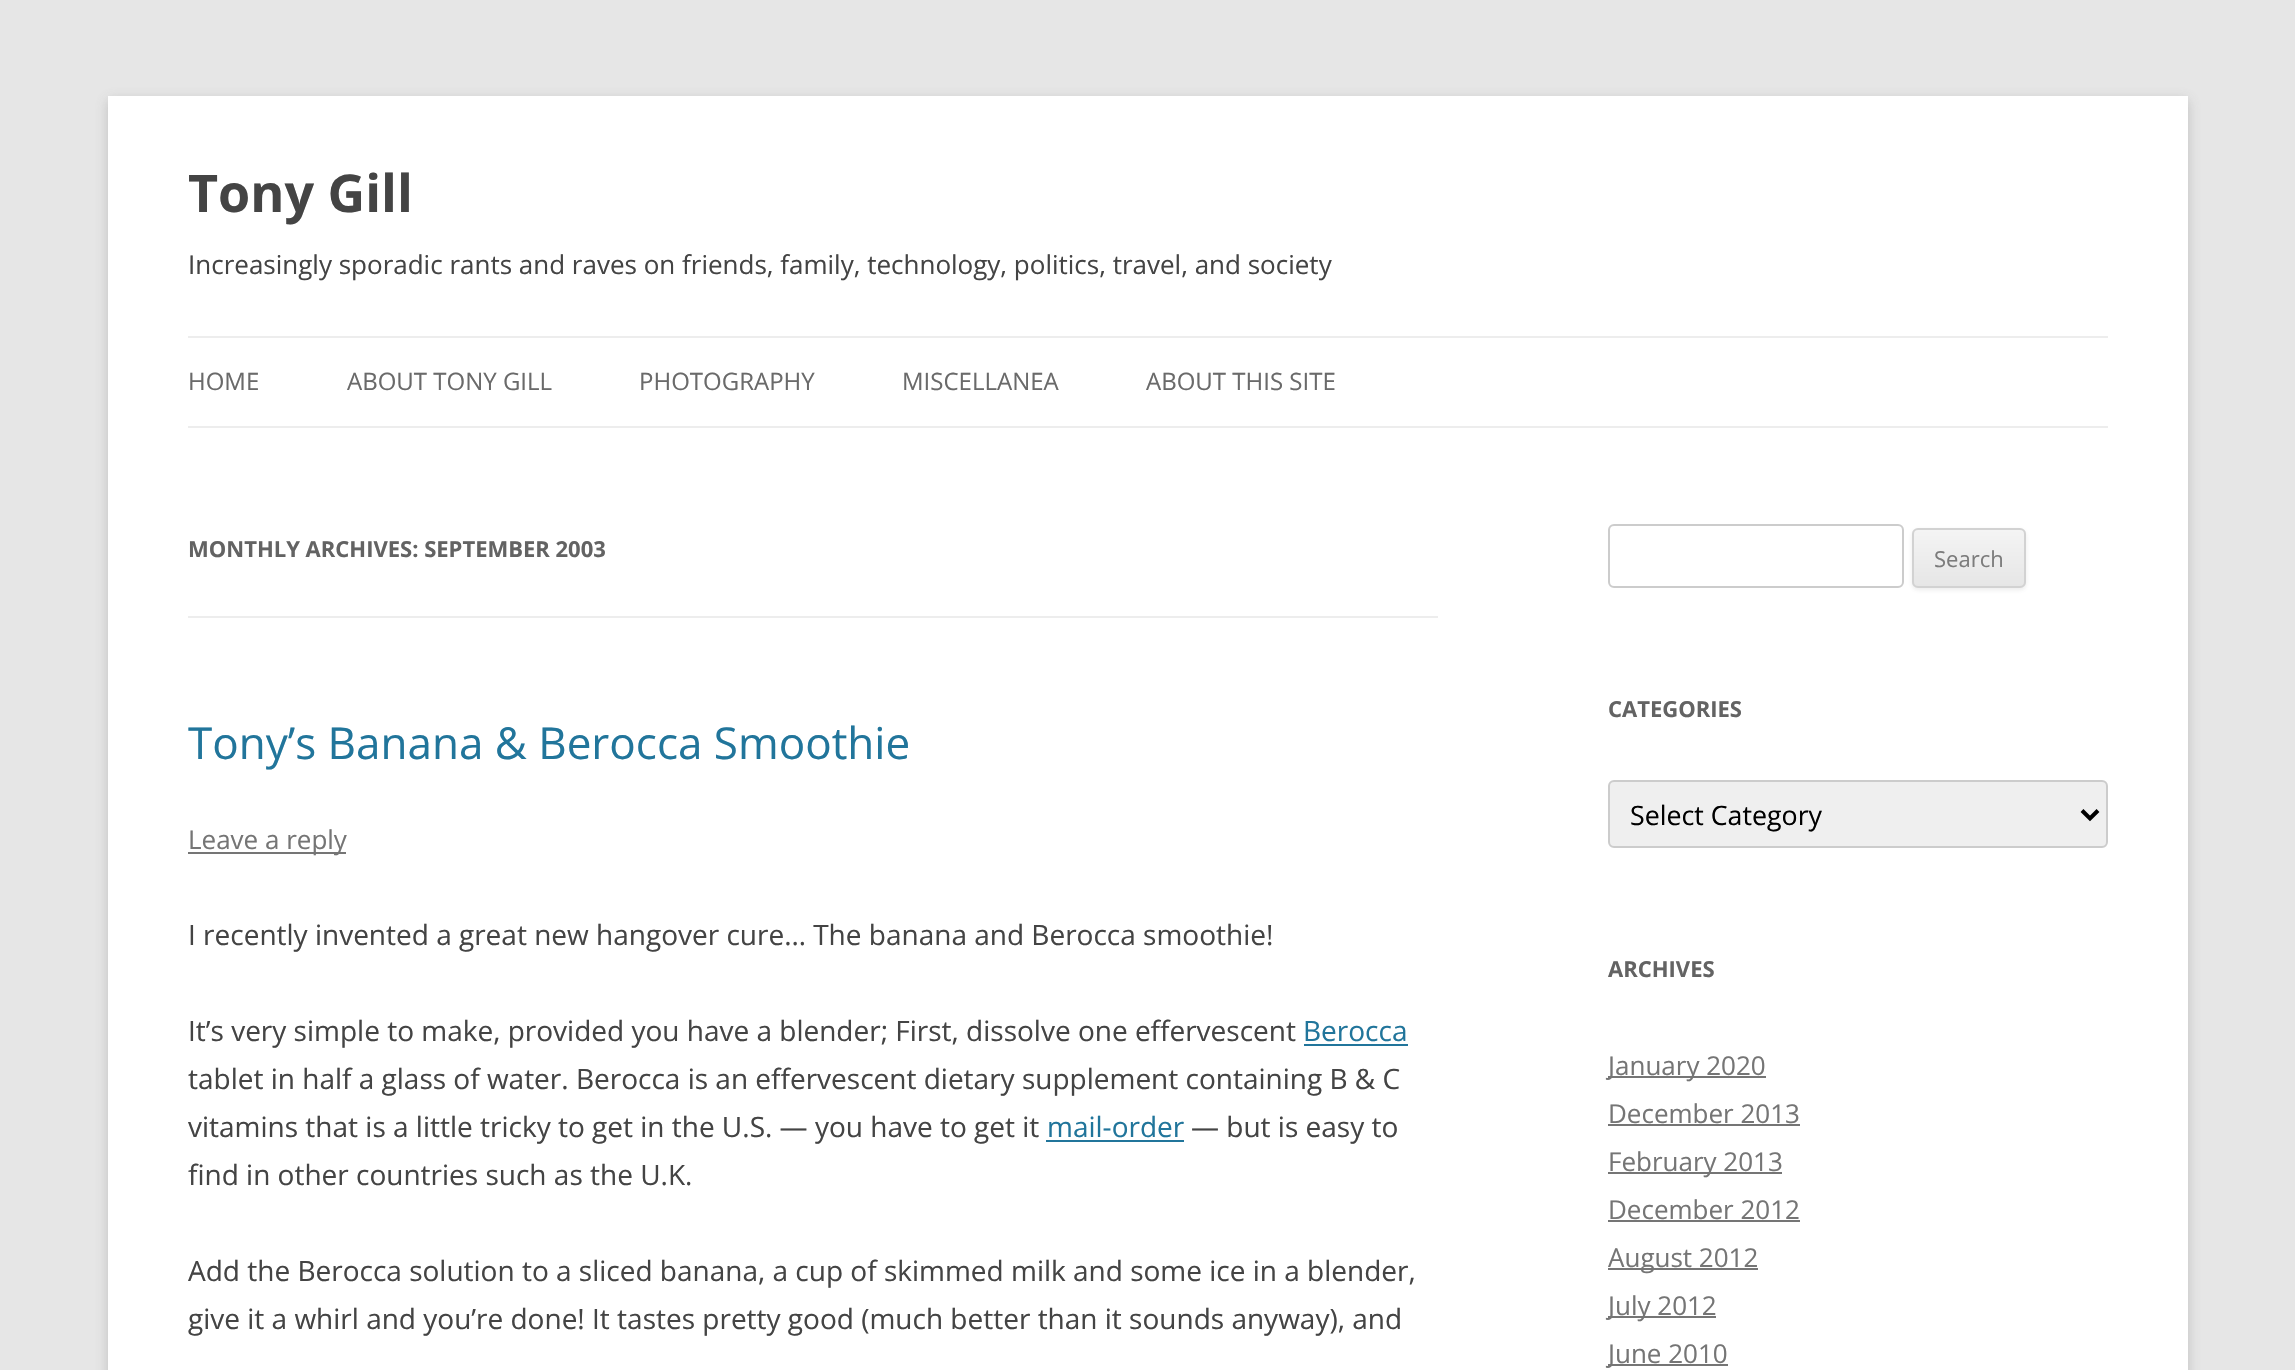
void draw(SkCanvas* canvas) {
	SkPaint paint;
	paint.setAntiAlias(true);
	auto svgPath = [&](const char* data, bool evenOdd = false) {
		SkPath result = *SkParsePath::FromSVGString(data);
		if (evenOdd) result.setFillType(SkPathFillType::kEvenOdd);
		return result;
	};
	canvas->clear(0xffe6e6e6);
	paint.setColor(0x4d646464);
	paint.setMaskFilter(SkMaskFilter::MakeBlur(kNormal_SkBlurStyle, 6));
	canvas->drawRect(SkRect::MakeXYWH(108, 100, 2080, 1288), paint);
	paint.setMaskFilter(nullptr);
	paint.setColor(0xffffffff);
	canvas->drawRect(SkRect::MakeXYWH(108, 96, 2080, 1274), paint);
	SkFont f1(fontMgr->matchFamilyStyle("Open Sans", SkFontStyle::Bold()), 52);
	f1.setSubpixel(true);
	paint.setColor(0xff444444);
	canvas->drawString("Tony Gill", 188, 212, f1, paint);
	SkFont f2(fontMgr->matchFamilyStyle("Open Sans", SkFontStyle::Normal()), 26);
	f2.setSubpixel(true);
	canvas->drawString("Increasingly sporadic rants and raves on friends, family, technology, politics, travel, and society", 188, 274, f2, paint);
	paint.setColor(0xffededed);
	canvas->drawRect(SkRect::MakeXYWH(188, 336, 1920, 2), paint);
	canvas->drawRect(SkRect::MakeXYWH(188, 426, 1920, 2), paint);
	SkFont f3(fontMgr->matchFamilyStyle("Open Sans", SkFontStyle::Normal()), 24);
	f3.setSubpixel(true);
	paint.setColor(0xff6a6a6a);
	canvas->drawString("HOME", 188, 390, f3, paint);
	canvas->drawString("ABOUT TONY GILL", 347, 390, f3, paint);
	canvas->drawString("PHOTOGRAPHY", 639, 390, f3, paint);
	canvas->drawString("MISCELLANEA", 902, 390, f3, paint);
	canvas->drawString("ABOUT THIS SITE", 1146, 390, f3, paint);
	paint.setColor(0xffededed);
	canvas->drawRect(SkRect::MakeXYWH(188, 616, 1250, 2), paint);
	SkFont f4(fontMgr->matchFamilyStyle("Open Sans", SkFontStyle::Bold()), 22);
	f4.setSubpixel(true);
	paint.setColor(0xff636363);
	canvas->drawString("MONTHLY ARCHIVES: SEPTEMBER 2003", 188, 557, f4, paint);
	SkFont f5(fontMgr->matchFamilyStyle("Open Sans", SkFontStyle::Normal()), 44);
	f5.setSubpixel(true);
	paint.setColor(0xff21759b);
	canvas->drawString("Tony’s Banana & Berocca Smoothie", 188, 759, f5, paint);
	paint.setColor(0xff757575);
	canvas->drawRect(SkRect::MakeXYWH(188, 852, 158, 2), paint);
	canvas->drawString("Leave a reply", 188, 849, f2, paint);
	SkFont f6(fontMgr->matchFamilyStyle("Open Sans", SkFontStyle::Normal()), 28);
	f6.setSubpixel(true);
	paint.setColor(0xff444444);
	canvas->drawString("I recently invented a great new hangover cure… The banana and Berocca smoothie!", 188, 945, f6, paint);
	canvas->drawString("It’s very simple to make, provided you have a blender; First, dissolve one effervescent", 188, 1041, f6, paint);
	paint.setColor(0xff21759b);
	canvas->drawString("Berocca", 1303, 1041, f6, paint);
	canvas->drawRect(SkRect::MakeXYWH(1304, 1044, 104, 2), paint);
	paint.setColor(0xff444444);
	canvas->drawString("tablet in half a glass of water. Berocca is an effervescent dietary supplement containing B & C", 188, 1089, f6, paint);
	canvas->drawString("vitamins that is a little tricky to get in the U.S. — you have to get it", 188, 1137, f6, paint);
	paint.setColor(0xff21759b);
	canvas->drawString("mail-order", 1047, 1137, f6, paint);
	canvas->drawRect(SkRect::MakeXYWH(1046, 1140, 138, 2), paint);
	paint.setColor(0xff444444);
	canvas->drawString("— but is easy to", 1191, 1137, f6, paint);
	canvas->drawString("find in other countries such as the U.K.", 188, 1185, f6, paint);
	canvas->drawString("Add the Berocca solution to a sliced banana, a cup of skimmed milk and some ice in a blender,", 188, 1281, f6, paint);
	canvas->drawString("give it a whirl and you’re done! It tastes pretty good (much better than it sounds anyway), and", 188, 1329, f6, paint);
	paint.setStroke(true);
	paint.setStrokeWidth(2);
	paint.setColor(0xffcccccc);
	canvas->drawRoundRect(SkRect::MakeXYWH(1609, 525, 294, 62), 5, 5, paint);
	paint.setStroke(false);
	paint.setColor(0x1a404040);
	paint.setMaskFilter(SkMaskFilter::MakeBlur(kNormal_SkBlurStyle, 2));
	canvas->drawRoundRect(SkRect::MakeXYWH(1912, 530, 114, 60), 6, 6, paint);
	paint.setMaskFilter(nullptr);
	canvas->save();
	canvas->clipPath(svgPath("M1918 528H2020C2023.5 528 2026 530.5 2026 534V582C2026 585.5 2023.5 588 2020 588H1918C1914.5 588 1912 585.5 1912 582V534C1912 530.5 1914.5 528 1918 528Z"), true);
	{
		const SkColor colors[] = {0xfff4f4f4, 0xffe6e6e6};
		const float stops[] = {0, 1};
		const SkPoint ends[] = {{1969, 530}, {1969, 586}};
		paint.setShader(SkGradientShader::MakeLinear(ends, colors, stops, 2, SkTileMode::kClamp));
		paint.setAlpha(255);
	}
	canvas->drawRect(SkRect::MakeXYWH(1912, 530, 114, 56), paint);
	canvas->restore();
	paint.setStroke(true);
	paint.setShader(nullptr);
	paint.setColor(0xffd2d2d2);
	canvas->drawRoundRect(SkRect::MakeXYWH(1913, 529, 112, 58), 5, 5, paint);
	SkFont f7(fontMgr->matchFamilyStyle("Open Sans", SkFontStyle::Normal()), 22);
	f7.setSubpixel(true);
	paint.setStroke(false);
	paint.setColor(0xff7c7c7c);
	canvas->drawString("Search", 1934, 567, f7, paint);
	paint.setColor(0xff636363);
	canvas->drawString("CATEGORIES", 1608, 717, f4, paint);
	paint.setColor(0xffefefef);
	canvas->drawRoundRect(SkRect::MakeXYWH(1609, 781, 498, 66), 5, 5, paint);
	paint.setStroke(true);
	paint.setColor(0xffcccccc);
	canvas->drawRoundRect(SkRect::MakeXYWH(1609, 781, 498, 66), 5, 5, paint);
	paint.setStrokeWidth(4);
	paint.setColor(0xff000000);
	canvas->drawPath(svgPath("M2082 810.5L2090 818.5L2098 810.5"), paint);
	SkFont f8(fontMgr->matchFamilyStyle("Open Sans", SkFontStyle::Normal()), 26.75);
	f8.setSubpixel(true);
	paint.setStroke(false);
	canvas->drawString("Select Category", 1630, 825, f8, paint);
	paint.setColor(0xff636363);
	canvas->drawString("ARCHIVES", 1608, 977, f4, paint);
	paint.setColor(0xff757575);
	canvas->drawRect(SkRect::MakeXYWH(1608, 1076, 158, 2), paint);
	canvas->drawString("January 2020", 1608, 1075, f2, paint);
	canvas->drawString("December 2013", 1608, 1123, f2, paint);
	canvas->drawRect(SkRect::MakeXYWH(1608, 1124, 192, 2), paint);
	canvas->drawRect(SkRect::MakeXYWH(1608, 1172, 174, 2), paint);
	canvas->drawString("February 2013", 1608, 1171, f2, paint);
	canvas->drawString("December 2012", 1608, 1219, f2, paint);
	canvas->drawRect(SkRect::MakeXYWH(1608, 1220, 192, 2), paint);
	canvas->drawRect(SkRect::MakeXYWH(1608, 1268, 150, 2), paint);
	canvas->drawString("August 2012", 1608, 1267, f2, paint);
	canvas->drawRect(SkRect::MakeXYWH(1608, 1316, 108, 2), paint);
	canvas->drawString("July 2012", 1608, 1315, f2, paint);
	canvas->drawRect(SkRect::MakeXYWH(1608, 1364, 120, 2), paint);
	canvas->drawString("June 2010", 1608, 1363, f2, paint);
}
